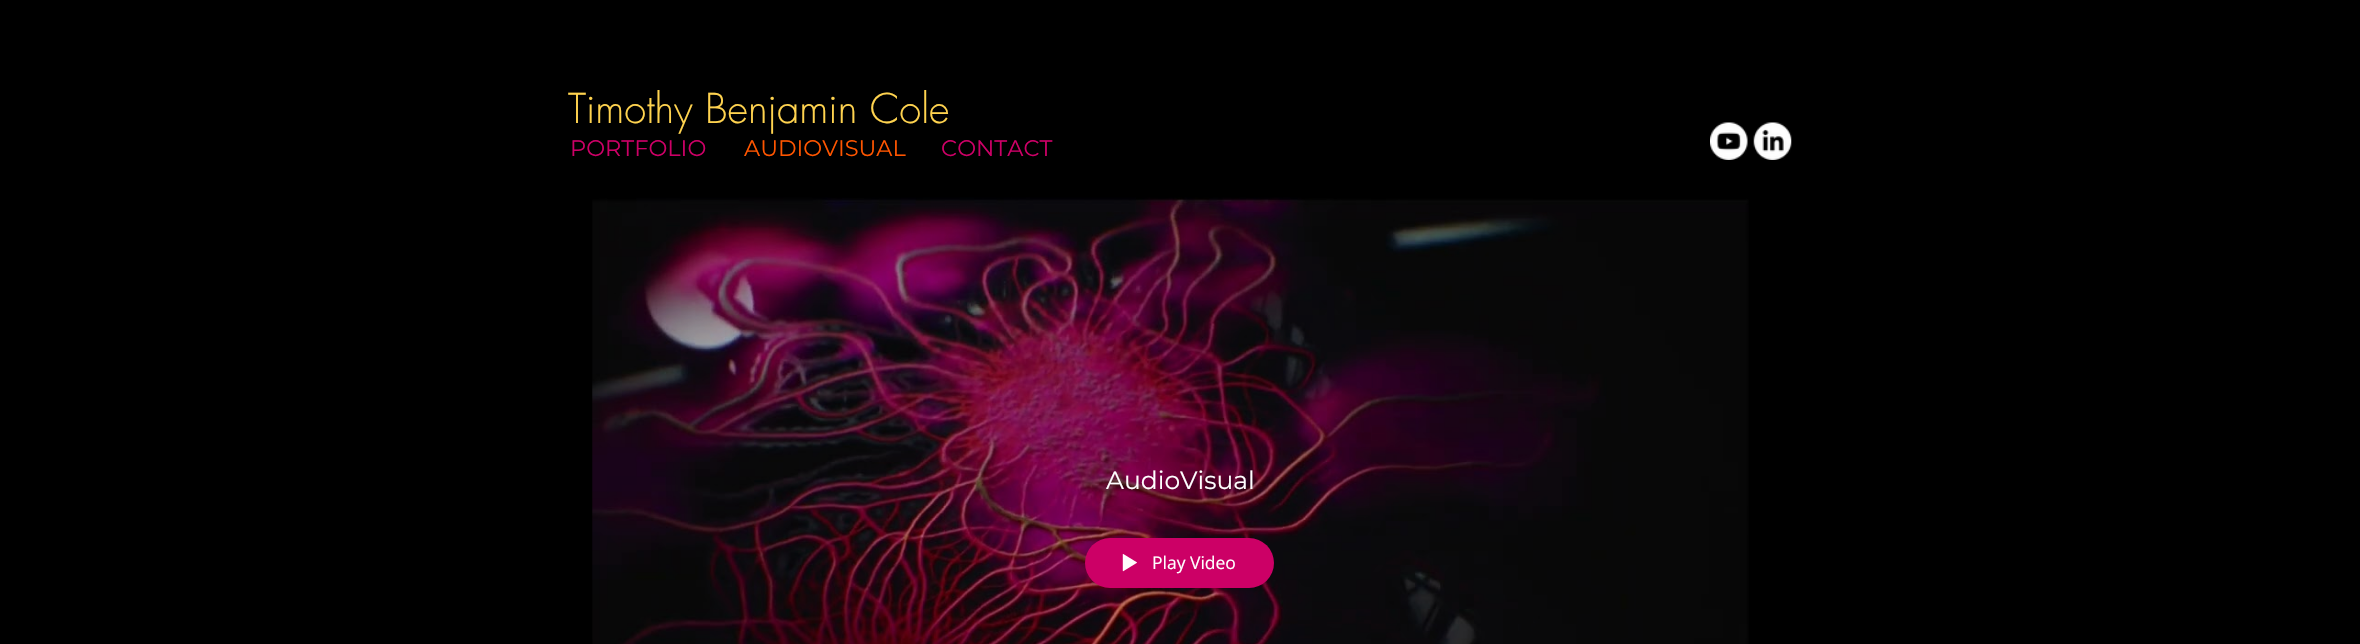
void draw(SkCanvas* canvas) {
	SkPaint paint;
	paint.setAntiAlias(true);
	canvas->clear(0xff000000);
	SkFont f1(fontMgr->matchFamilyStyle("futura", SkFontStyle(300, SkFontStyle::kNormal_Width, SkFontStyle::kUpright_Slant)), 40);
	f1.setSubpixel(true);
	paint.setColor(0xffffd34f);
	canvas->drawString("Timothy Benjamin Cole", 568, 123, f1, paint);
	SkFont f2(fontMgr->matchFamilyStyle("Montserrat", SkFontStyle::Normal()), 22.5);
	f2.setSubpixel(true);
	paint.setColor(0xffcc0066);
	canvas->drawString("PORTFOLIO", 570, 156, f2, paint);
	paint.setColor(0xffff5500);
	canvas->drawString("AUDIOVISUAL", 744, 156, f2, paint);
	paint.setColor(0xffcc0066);
	canvas->drawString("CONTACT", 941, 156, f2, paint);
	canvas->drawImageRect(SkImages::DeferredFromEncodedData(SkData::MakeFromFileName("img1.png")), SkRect::MakeXYWH(1710, 122, 38, 38), SkSamplingOptions());
	canvas->drawImageRect(SkImages::DeferredFromEncodedData(SkData::MakeFromFileName("img2.png")), SkRect::MakeXYWH(1753, 122, 39, 38), SkSamplingOptions());
	canvas->drawImageRect(SkImages::DeferredFromEncodedData(SkData::MakeFromFileName("img3.png")), SkRect::MakeXYWH(592, 197, 1157, 447), SkSamplingOptions());
	canvas->drawImageRect(SkImages::DeferredFromEncodedData(SkData::MakeFromFileName("img4.png")), SkRect::MakeXYWH(592, 199, 734, 440), SkSamplingOptions());
	SkFont f3(fontMgr->matchFamilyStyle("Montserrat", SkFontStyle::Normal()), 25);
	f3.setSubpixel(true);
	paint.setColor(0xffffffff);
	canvas->drawString("AudioVisual", 1106, 489, f3, paint);
	paint.setColor(0xffcc0066);
	canvas->drawRoundRect(SkRect::MakeXYWH(1085, 538, 189, 50), 25, 25, paint);
	canvas->drawImageRect(SkImages::DeferredFromEncodedData(SkData::MakeFromFileName("img5.png")), SkRect::MakeXYWH(1122, 554, 15, 18), SkSamplingOptions());
	SkFont f4(fontMgr->matchFamilyStyle("Open Sans", SkFontStyle::Normal()), 17.5);
	f4.setSubpixel(true);
	paint.setColor(0xffffffff);
	canvas->drawString("Play Video", 1152, 569, f4, paint);
}
